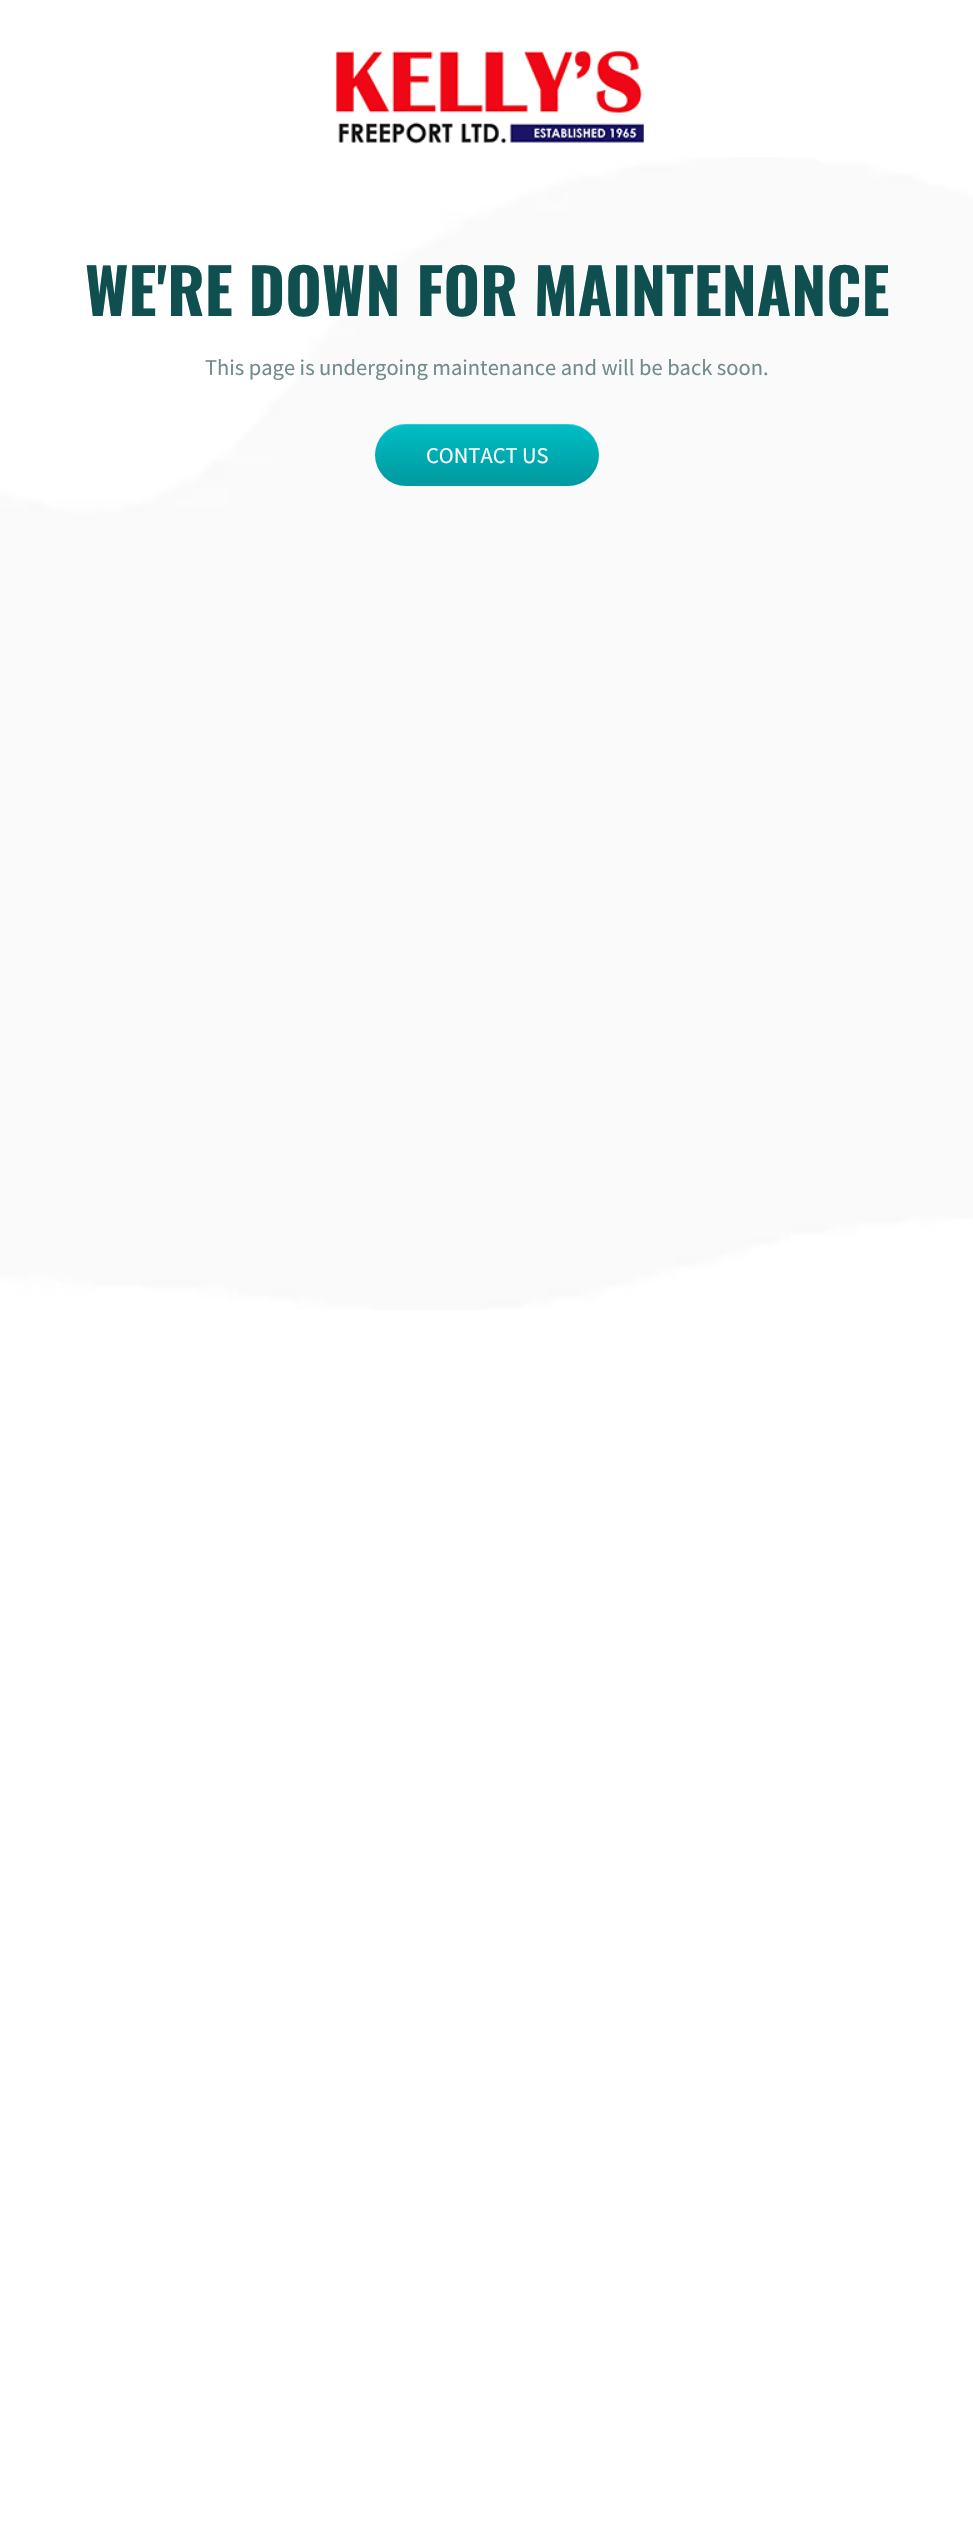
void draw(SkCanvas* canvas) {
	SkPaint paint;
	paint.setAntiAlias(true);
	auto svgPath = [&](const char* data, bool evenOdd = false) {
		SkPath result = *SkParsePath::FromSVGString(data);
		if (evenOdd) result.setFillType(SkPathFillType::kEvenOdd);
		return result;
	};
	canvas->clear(0xffffffff);
	canvas->drawImageRect(SkImages::DeferredFromEncodedData(SkData::MakeFromFileName("img1.png")), SkRect::MakeXYWH(0, 157, 973, 1153), SkSamplingOptions());
	canvas->drawImageRect(SkImages::DeferredFromEncodedData(SkData::MakeFromFileName("img2.png")), SkRect::MakeXYWH(336, 50, 308, 94), SkSamplingOptions());
	SkFont f1(fontMgr->matchFamilyStyle("Oswald", SkFontStyle::Bold()), 62.5);
	f1.setSubpixel(true);
	paint.setColor(0xff104f50);
	canvas->drawString("WE'RE DOWN FOR MAINTENANCE", 85, 316, f1, paint);
	SkFont f2(fontMgr->matchFamilyStyle("Source Sans Pro", SkFontStyle::Normal()), 22.5);
	f2.setSubpixel(true);
	paint.setColor(0xff728b8c);
	canvas->drawString("This page is undergoing maintenance and will be back soon.", 205, 375, f2, paint);
	{
		const SkColor colors[] = {0xff00bec6, 0xff009ca2};
		const float stops[] = {0, 0.9};
		const SkPoint ends[] = {{487, 424}, {487, 486}};
		paint.setShader(SkGradientShader::MakeLinear(ends, colors, stops, 2, SkTileMode::kClamp));
		paint.setAlpha(255);
	}
	canvas->drawRoundRect(SkRect::MakeXYWH(375, 424, 224, 62), 31, 31, paint);
	paint.setShader(nullptr);
	paint.setColor(0x33ffffff);
	canvas->drawPath(svgPath("M406 425H568C585 425 599 439 599 456V455C599 438 585 424 568 424H406C389 424 375 438 375 455V456C375 439 389 425 406 425Z"), paint);
	paint.setColor(0xffffffff);
	canvas->drawString("CONTACT US", 426, 463, f2, paint);
}
